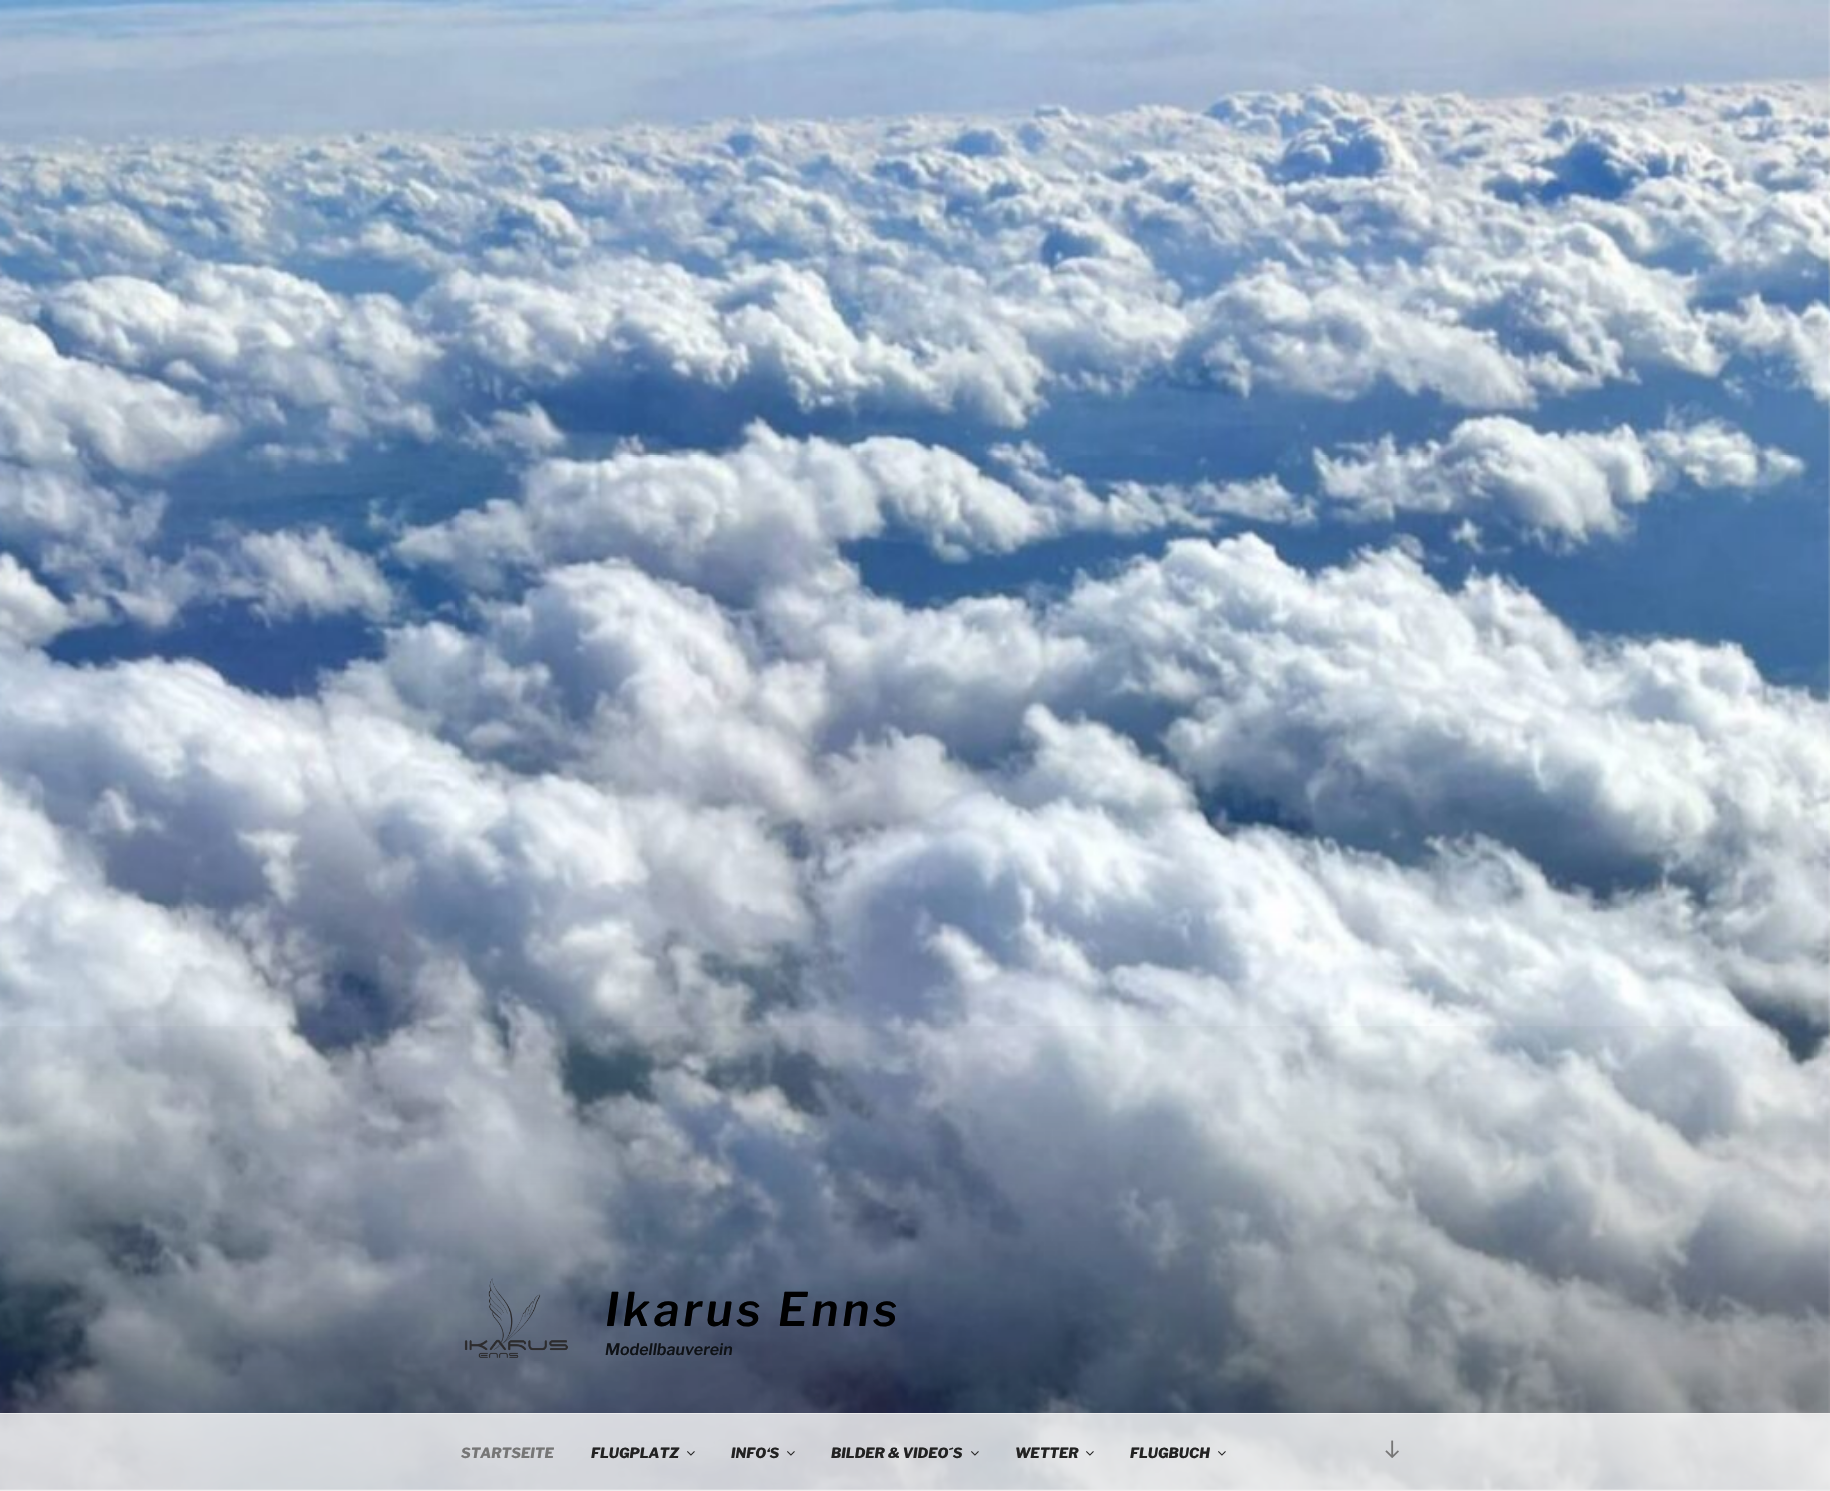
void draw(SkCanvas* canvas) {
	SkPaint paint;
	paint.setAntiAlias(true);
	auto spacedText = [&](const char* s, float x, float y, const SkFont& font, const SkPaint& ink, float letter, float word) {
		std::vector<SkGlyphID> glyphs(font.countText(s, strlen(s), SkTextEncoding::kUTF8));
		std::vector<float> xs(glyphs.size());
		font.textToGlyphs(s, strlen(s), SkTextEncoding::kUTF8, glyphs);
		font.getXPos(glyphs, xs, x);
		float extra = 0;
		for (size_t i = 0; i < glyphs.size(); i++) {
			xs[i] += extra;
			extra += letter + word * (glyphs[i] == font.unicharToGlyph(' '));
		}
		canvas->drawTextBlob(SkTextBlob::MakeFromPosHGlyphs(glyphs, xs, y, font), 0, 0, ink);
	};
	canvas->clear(0xfffafafa);
	canvas->drawImageRect(SkImages::DeferredFromEncodedData(SkData::MakeFromFileName("img1.png")), SkRect::MakeXYWH(0, 0, 1830, 1491), SkSamplingOptions());
	{
		const SkColor colors[] = {0x00000000, 0x4d000000, 0x4d000000};
		const float stops[] = {0, 0.75, 1};
		const SkPoint ends[] = {{915, 999}, {915, 1491}};
		paint.setShader(SkGradientShader::MakeLinear(ends, colors, stops, 3, SkTileMode::kClamp));
		paint.setAlpha(255);
	}
	canvas->drawRect(SkRect::MakeXYWH(0, 1026, 1830, 465), paint);
	canvas->drawImageRect(SkImages::DeferredFromEncodedData(SkData::MakeFromFileName("img2.png")), SkRect::MakeXYWH(464, 1278, 104, 80), SkSamplingOptions());
	SkFont f1(fontMgr->matchFamilyStyle("Libre Franklin", SkFontStyle(100, SkFontStyle::kNormal_Width, SkFontStyle::kItalic_Slant)), 46);
	f1.setSubpixel(true);
	paint.setShader(nullptr);
	paint.setColor(0xff000000);
	spacedText("Ikarus Enns", 605, 1326, f1, paint, 3.75, 0);
	SkFont f2(fontMgr->matchFamilyStyle("Libre Franklin", SkFontStyle(100, SkFontStyle::kNormal_Width, SkFontStyle::kItalic_Slant)), 16);
	f2.setSubpixel(true);
	paint.setColor(0xff0f1216);
	canvas->drawString("Modellbauverein", 605, 1355, f2, paint);
	paint.setColor(0xc9ffffff);
	canvas->drawRect(SkRect::MakeXYWH(0, 1413, 1830, 78), paint);
	paint.setColor(0xc9eeeeee);
	canvas->drawRect(SkRect::MakeXYWH(0, 1413, 1830, 1), paint);
	canvas->drawRect(SkRect::MakeXYWH(0, 1490, 1806, 1), paint);
	SkFont f3(fontMgr->matchFamilyStyle("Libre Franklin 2", SkFontStyle(100, SkFontStyle::kNormal_Width, SkFontStyle::kItalic_Slant)), 14);
	f3.setSubpixel(true);
	paint.setColor(0xff767676);
	canvas->drawString("STARTSEITE", 461, 1458, f3, paint);
	paint.setColor(0xff222222);
	canvas->drawString("FLUGPLATZ", 591, 1458, f3, paint);
	canvas->drawImageRect(SkImages::DeferredFromEncodedData(SkData::MakeFromFileName("img3.png")), SkRect::MakeXYWH(687, 1451, 8, 5), SkSamplingOptions());
	canvas->drawString("INFO‘S", 731, 1458, f3, paint);
	canvas->drawImageRect(SkImages::DeferredFromEncodedData(SkData::MakeFromFileName("img4.png")), SkRect::MakeXYWH(787, 1451, 8, 5), SkSamplingOptions());
	canvas->drawString("BILDER & VIDEO´S", 831, 1458, f3, paint);
	canvas->drawImageRect(SkImages::DeferredFromEncodedData(SkData::MakeFromFileName("img5.png")), SkRect::MakeXYWH(971, 1451, 8, 5), SkSamplingOptions());
	canvas->drawString("WETTER", 1015, 1458, f3, paint);
	canvas->drawImageRect(SkImages::DeferredFromEncodedData(SkData::MakeFromFileName("img6.png")), SkRect::MakeXYWH(1086, 1451, 8, 5), SkSamplingOptions());
	canvas->drawString("FLUGBUCH", 1130, 1458, f3, paint);
	canvas->drawImageRect(SkImages::DeferredFromEncodedData(SkData::MakeFromFileName("img7.png")), SkRect::MakeXYWH(1218, 1451, 8, 5), SkSamplingOptions());
	canvas->drawImageRect(SkImages::DeferredFromEncodedData(SkData::MakeFromFileName("img8.png")), SkRect::MakeXYWH(1385, 1440, 14, 18), SkSamplingOptions());
}
